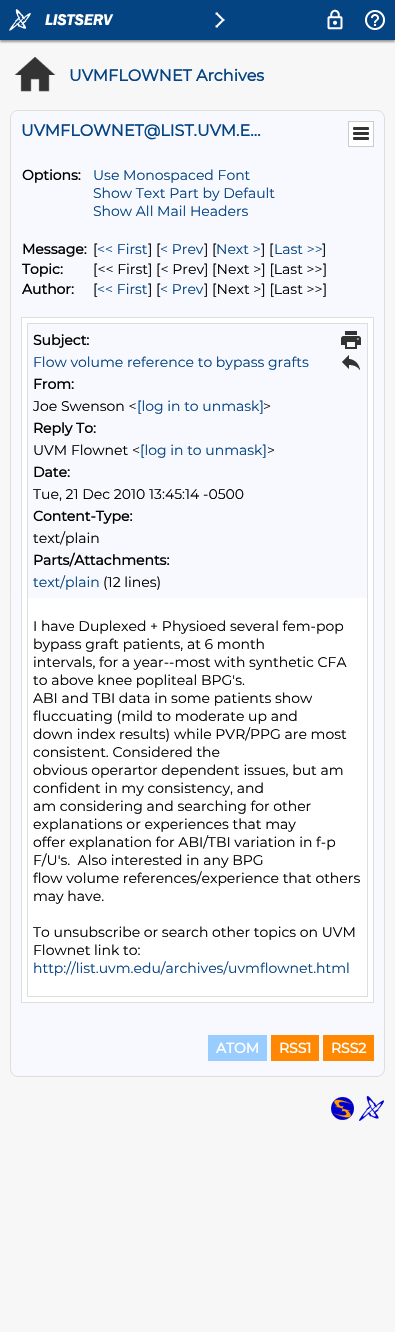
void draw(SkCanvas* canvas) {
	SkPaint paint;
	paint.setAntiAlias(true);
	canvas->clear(0xfff7f7f7);
	paint.setColor(0xff999999);
	paint.setMaskFilter(SkMaskFilter::MakeBlur(kNormal_SkBlurStyle, 1));
	canvas->drawRect(SkRect::MakeXYWH(0, 2, 395, 40), paint);
	paint.setMaskFilter(nullptr);
	paint.setColor(0xff054483);
	canvas->drawRect(SkRect::MakeXYWH(0, 0, 395, 40), paint);
	canvas->drawImageRect(SkImages::DeferredFromEncodedData(SkData::MakeFromFileName("img1.png")), SkRect::MakeXYWH(9, 9, 22, 22), SkSamplingOptions());
	canvas->drawImageRect(SkImages::DeferredFromEncodedData(SkData::MakeFromFileName("img2.png")), SkRect::MakeXYWH(45, 14, 69, 12), SkSamplingOptions());
	canvas->drawImageRect(SkImages::DeferredFromEncodedData(SkData::MakeFromFileName("img3.png")), SkRect::MakeXYWH(215, 12, 10, 16), SkSamplingOptions());
	canvas->drawImageRect(SkImages::DeferredFromEncodedData(SkData::MakeFromFileName("img4.png")), SkRect::MakeXYWH(327, 9, 16, 21), SkSamplingOptions());
	canvas->drawImageRect(SkImages::DeferredFromEncodedData(SkData::MakeFromFileName("img5.png")), SkRect::MakeXYWH(365, 10, 20, 20), SkSamplingOptions());
	canvas->drawImageRect(SkImages::DeferredFromEncodedData(SkData::MakeFromFileName("img6.png")), SkRect::MakeXYWH(14, 57, 42, 35), SkSamplingOptions());
	SkFont f1(fontMgr->matchFamilyStyle("Montserrat", SkFontStyle::Bold()), 16);
	f1.setSubpixel(true);
	canvas->drawString("UVMFLOWNET Archives", 69, 81, f1, paint);
	paint.setColor(0xfff7f9fe);
	canvas->drawRoundRect(SkRect::MakeXYWH(10.5, 110.5, 374, 966), 7.5, 7.5, paint);
	paint.setStroke(true);
	paint.setStrokeWidth(1);
	paint.setColor(0xffdedede);
	canvas->drawRoundRect(SkRect::MakeXYWH(10.5, 110.5, 374, 966), 7.5, 7.5, paint);
	paint.setStroke(false);
	paint.setColor(0xff054483);
	canvas->drawString("UVMFLOWNET@LIST.UVM.E…", 21, 136, f1, paint);
	paint.setColor(0xffffffff);
	canvas->drawRect(SkRect::MakeXYWH(348.5, 121.5, 25, 25), paint);
	paint.setStroke(true);
	paint.setColor(0xffcccccc);
	canvas->drawRect(SkRect::MakeXYWH(348.5, 121.5, 25, 25), paint);
	canvas->drawImageRect(SkImages::DeferredFromEncodedData(SkData::MakeFromFileName("img7.png")), SkRect::MakeXYWH(353, 127, 16, 13), SkSamplingOptions());
	SkFont f2(fontMgr->matchFamilyStyle("Montserrat", SkFontStyle::Bold()), 14);
	f2.setSubpixel(true);
	paint.setStroke(false);
	paint.setColor(0xff000000);
	canvas->drawString("Options:", 22, 180, f2, paint);
	SkFont f3(fontMgr->matchFamilyStyle("Montserrat", SkFontStyle(100, SkFontStyle::kNormal_Width, SkFontStyle::kUpright_Slant)), 14);
	f3.setSubpixel(true);
	paint.setColor(0xff054483);
	canvas->drawString("Use Monospaced Font", 93, 180, f3, paint);
	canvas->drawString("Show Text Part by Default", 93, 198, f3, paint);
	canvas->drawString("Show All Mail Headers", 93, 216, f3, paint);
	paint.setColor(0xff000000);
	canvas->drawString("Message:", 22, 254, f2, paint);
	canvas->drawString("[", 93, 254, f3, paint);
	paint.setColor(0xff054483);
	canvas->drawString("<< First", 97, 254, f3, paint);
	paint.setColor(0xff000000);
	canvas->drawString("] [", 148, 254, f3, paint);
	paint.setColor(0xff054483);
	canvas->drawString("< Prev", 160, 254, f3, paint);
	paint.setColor(0xff000000);
	canvas->drawString("] [", 204, 254, f3, paint);
	paint.setColor(0xff054483);
	canvas->drawString("Next >", 216, 254, f3, paint);
	paint.setColor(0xff000000);
	canvas->drawString("] [", 261, 254, f3, paint);
	paint.setColor(0xff054483);
	canvas->drawString("Last >>", 274, 254, f3, paint);
	paint.setColor(0xff000000);
	canvas->drawString("]", 322, 254, f3, paint);
	canvas->drawString("Topic:", 22, 274, f2, paint);
	canvas->drawString("[<< First] [< Prev] [Next >] [Last >>]", 93, 274, f3, paint);
	canvas->drawString("Author:", 22, 294, f2, paint);
	canvas->drawString("[", 93, 294, f3, paint);
	paint.setColor(0xff054483);
	canvas->drawString("<< First", 97, 294, f3, paint);
	paint.setColor(0xff000000);
	canvas->drawString("] [", 148, 294, f3, paint);
	paint.setColor(0xff054483);
	canvas->drawString("< Prev", 160, 294, f3, paint);
	paint.setColor(0xff000000);
	canvas->drawString("] [Next >] [Last >>]", 204, 294, f3, paint);
	paint.setStroke(true);
	paint.setColor(0xffdedede);
	canvas->drawRect(SkRect::MakeXYWH(21.5, 317.5, 352, 685), paint);
	paint.setStroke(false);
	paint.setColor(0xffffffff);
	canvas->drawRect(SkRect::MakeXYWH(22, 318, 351, 684), paint);
	paint.setStroke(true);
	paint.setColor(0xffdedede);
	canvas->drawRect(SkRect::MakeXYWH(27.5, 323.5, 340, 673), paint);
	paint.setStroke(false);
	paint.setColor(0xfff7f9fe);
	canvas->drawRect(SkRect::MakeXYWH(28, 324, 339, 274), paint);
	paint.setColor(0xff000000);
	canvas->drawString("Subject:", 33, 345, f2, paint);
	paint.setColor(0xff054483);
	canvas->drawString("Flow volume reference to bypass grafts", 33, 367, f3, paint);
	paint.setColor(0xff000000);
	canvas->drawString("From:", 33, 389, f2, paint);
	canvas->drawString("Joe Swenson <", 33, 411, f3, paint);
	paint.setColor(0xff054483);
	canvas->drawString("[log in to unmask]", 137, 411, f3, paint);
	paint.setColor(0xff000000);
	canvas->drawString(">", 263, 411, f3, paint);
	canvas->drawString("Reply To:", 33, 433, f2, paint);
	canvas->drawString("UVM Flownet <", 33, 455, f3, paint);
	paint.setColor(0xff054483);
	canvas->drawString("[log in to unmask]", 140, 455, f3, paint);
	paint.setColor(0xff000000);
	canvas->drawString(">", 267, 455, f3, paint);
	canvas->drawString("Date:", 33, 477, f2, paint);
	canvas->drawString("Tue, 21 Dec 2010 13:45:14 -0500", 33, 499, f3, paint);
	canvas->drawString("Content-Type:", 33, 521, f2, paint);
	canvas->drawString("text/plain", 33, 543, f3, paint);
	canvas->drawString("Parts/Attachments:", 33, 565, f2, paint);
	paint.setColor(0xff054483);
	canvas->drawString("text/plain", 33, 587, f3, paint);
	paint.setColor(0xff000000);
	canvas->drawString("(12 lines)", 103, 587, f3, paint);
	canvas->drawImageRect(SkImages::DeferredFromEncodedData(SkData::MakeFromFileName("img8.png")), SkRect::MakeXYWH(341, 331, 20, 18), SkSamplingOptions());
	canvas->drawImageRect(SkImages::DeferredFromEncodedData(SkData::MakeFromFileName("img9.png")), SkRect::MakeXYWH(342, 355, 18, 15), SkSamplingOptions());
	canvas->drawString("I have Duplexed + Physioed several fem-pop", 33, 631, f3, paint);
	canvas->drawString("bypass graft patients, at 6 month", 33, 649, f3, paint);
	canvas->drawString("intervals, for a year--most with synthetic CFA", 33, 667, f3, paint);
	canvas->drawString("to above knee popliteal BPG's.", 33, 685, f3, paint);
	canvas->drawString("ABI and TBI data in some patients show", 33, 703, f3, paint);
	canvas->drawString("fluccuating (mild to moderate up and", 33, 721, f3, paint);
	canvas->drawString("down index results) while PVR/PPG are most", 33, 739, f3, paint);
	canvas->drawString("consistent. Considered the", 33, 757, f3, paint);
	canvas->drawString("obvious operartor dependent issues, but am", 33, 775, f3, paint);
	canvas->drawString("confident in my consistency, and", 33, 793, f3, paint);
	canvas->drawString("am considering and searching for other", 33, 811, f3, paint);
	canvas->drawString("explanations or experiences that may", 33, 829, f3, paint);
	canvas->drawString("offer explanation for ABI/TBI variation in f-p", 33, 847, f3, paint);
	canvas->drawString("F/U's.  Also interested in any BPG", 33, 865, f3, paint);
	canvas->drawString("flow volume references/experience that others", 33, 883, f3, paint);
	canvas->drawString("may have.", 33, 901, f3, paint);
	canvas->drawString("To unsubscribe or search other topics on UVM", 33, 937, f3, paint);
	canvas->drawString("Flownet link to:", 33, 955, f3, paint);
	paint.setColor(0xff054483);
	canvas->drawString("http://list.uvm.edu/archives/uvmflownet.html", 33, 973, f3, paint);
	paint.setColor(0xff99ccff);
	canvas->drawRect(SkRect::MakeXYWH(208, 1035, 59, 26), paint);
	paint.setColor(0xffffffff);
	canvas->drawString("ATOM", 216, 1053, f2, paint);
	paint.setColor(0xffff8800);
	canvas->drawRect(SkRect::MakeXYWH(271, 1035, 48, 26), paint);
	paint.setColor(0xffffffff);
	canvas->drawString("RSS1", 279, 1053, f2, paint);
	paint.setColor(0xffff8800);
	canvas->drawRect(SkRect::MakeXYWH(323, 1035, 51, 26), paint);
	paint.setColor(0xffffffff);
	canvas->drawString("RSS2", 331, 1053, f2, paint);
	canvas->drawImageRect(SkImages::DeferredFromEncodedData(SkData::MakeFromFileName("img10.png")), SkRect::MakeXYWH(331, 1097, 23, 23), SkSamplingOptions());
	canvas->drawImageRect(SkImages::DeferredFromEncodedData(SkData::MakeFromFileName("img11.png")), SkRect::MakeXYWH(359, 1096, 25, 25), SkSamplingOptions());
}
